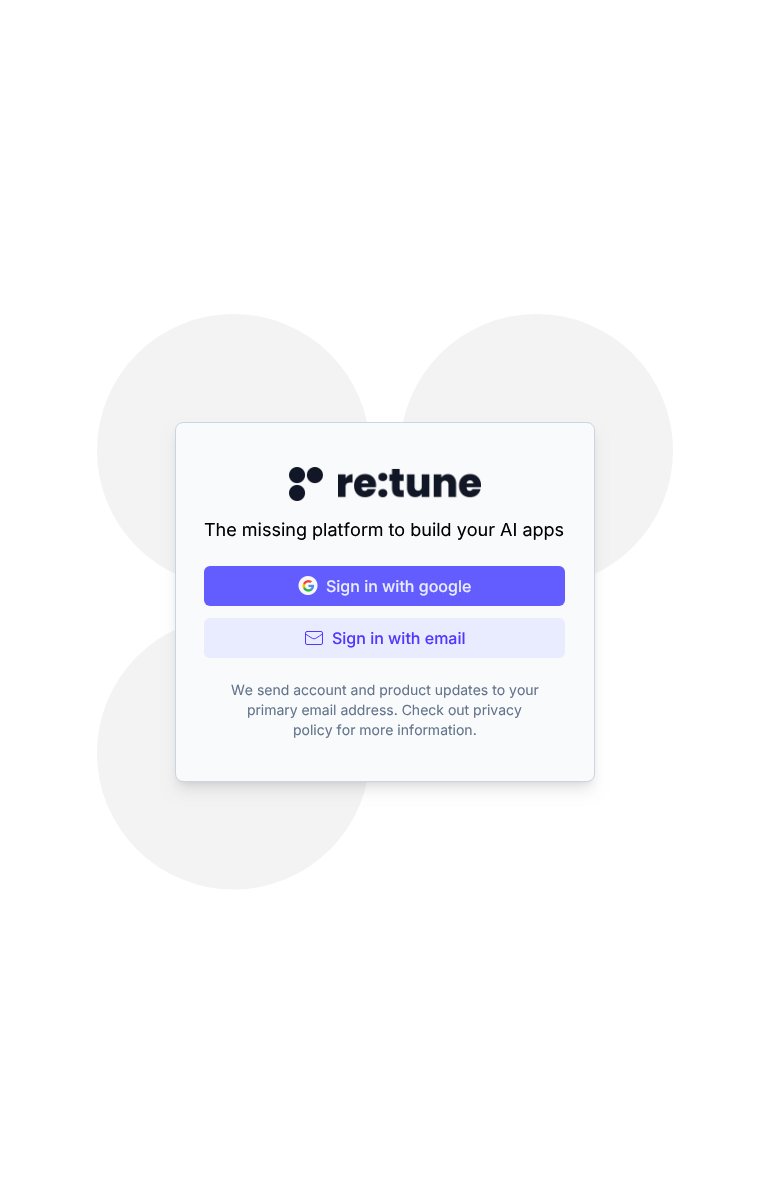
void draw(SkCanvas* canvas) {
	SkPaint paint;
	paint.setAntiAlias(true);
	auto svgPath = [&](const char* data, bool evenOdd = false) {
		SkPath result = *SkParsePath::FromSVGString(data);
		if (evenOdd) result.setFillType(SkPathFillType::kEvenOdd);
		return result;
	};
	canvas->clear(0xffffffff);
	paint.setColor(0xfff3f3f4);
	canvas->drawCircle(233.5, 450.5, 136.5, paint);
	canvas->drawCircle(536.5, 450.5, 136.5, paint);
	canvas->drawCircle(233.5, 753, 136.5, paint);
	paint.setColor(0x1a000000);
	paint.setMaskFilter(SkMaskFilter::MakeBlur(kNormal_SkBlurStyle, 3));
	canvas->drawRoundRect(SkRect::MakeXYWH(179, 430, 412, 352), 4, 4, paint);
	paint.setMaskFilter(nullptr);
	paint.setMaskFilter(SkMaskFilter::MakeBlur(kNormal_SkBlurStyle, 7.5));
	canvas->drawRoundRect(SkRect::MakeXYWH(178, 435, 414, 354), 5, 5, paint);
	paint.setMaskFilter(nullptr);
	paint.setColor(0xfff8fafc);
	canvas->drawRoundRect(SkRect::MakeXYWH(175.5, 422.5, 419, 359), 7.5, 7.5, paint);
	paint.setStroke(true);
	paint.setStrokeWidth(1);
	paint.setColor(0xffcbd5e1);
	canvas->drawRoundRect(SkRect::MakeXYWH(175.5, 422.5, 419, 359), 7.5, 7.5, paint);
	canvas->drawImageRect(SkImages::DeferredFromEncodedData(SkData::MakeFromFileName("img1.png")), SkRect::MakeXYWH(289, 467, 192, 34), SkSamplingOptions());
	SkFont f1(fontMgr->matchFamilyStyle("Inter", SkFontStyle::Normal()), 18);
	f1.setSubpixel(true);
	paint.setStroke(false);
	paint.setColor(0xff000000);
	canvas->drawString("The missing platform to build your AI apps", 204, 536, f1, paint);
	paint.setColor(0xff635dff);
	canvas->drawRoundRect(SkRect::MakeXYWH(204, 566, 361, 40), 6, 6, paint);
	canvas->drawImageRect(SkImages::DeferredFromEncodedData(SkData::MakeFromFileName("img2.png")), SkRect::MakeXYWH(298, 576, 20, 19), SkSamplingOptions());
	SkFont f2(fontMgr->matchFamilyStyle("Inter", SkFontStyle(500, SkFontStyle::kNormal_Width, SkFontStyle::kUpright_Slant)), 16);
	f2.setSubpixel(true);
	paint.setColor(0xffe9ecff);
	canvas->drawString("Sign in with google", 326, 592, f2, paint);
	canvas->drawRoundRect(SkRect::MakeXYWH(204, 618, 361, 40), 6, 6, paint);
	paint.setStroke(true);
	paint.setColor(0xff5038ff);
	canvas->drawRoundRect(SkRect::MakeXYWH(305.5, 631.5, 17, 13), 1.5, 1.5, paint);
	paint.setStrokeCap(SkPaint::kRound_Cap);
	paint.setStrokeJoin(SkPaint::kRound_Join);
	canvas->drawPath(svgPath("M322.5 634C312 640.5 316 640.5 305.5 634"), paint);
	paint.setStroke(false);
	canvas->drawString("Sign in with email", 332, 644, f2, paint);
	SkFont f3(fontMgr->matchFamilyStyle("Inter", SkFontStyle::Normal()), 14);
	f3.setSubpixel(true);
	paint.setColor(0xff64748b);
	canvas->drawString("We send account and product updates to your", 231, 695, f3, paint);
	canvas->drawString("primary email address. Check out privacy", 247, 715, f3, paint);
	canvas->drawString("policy for more information.", 293, 735, f3, paint);
}
